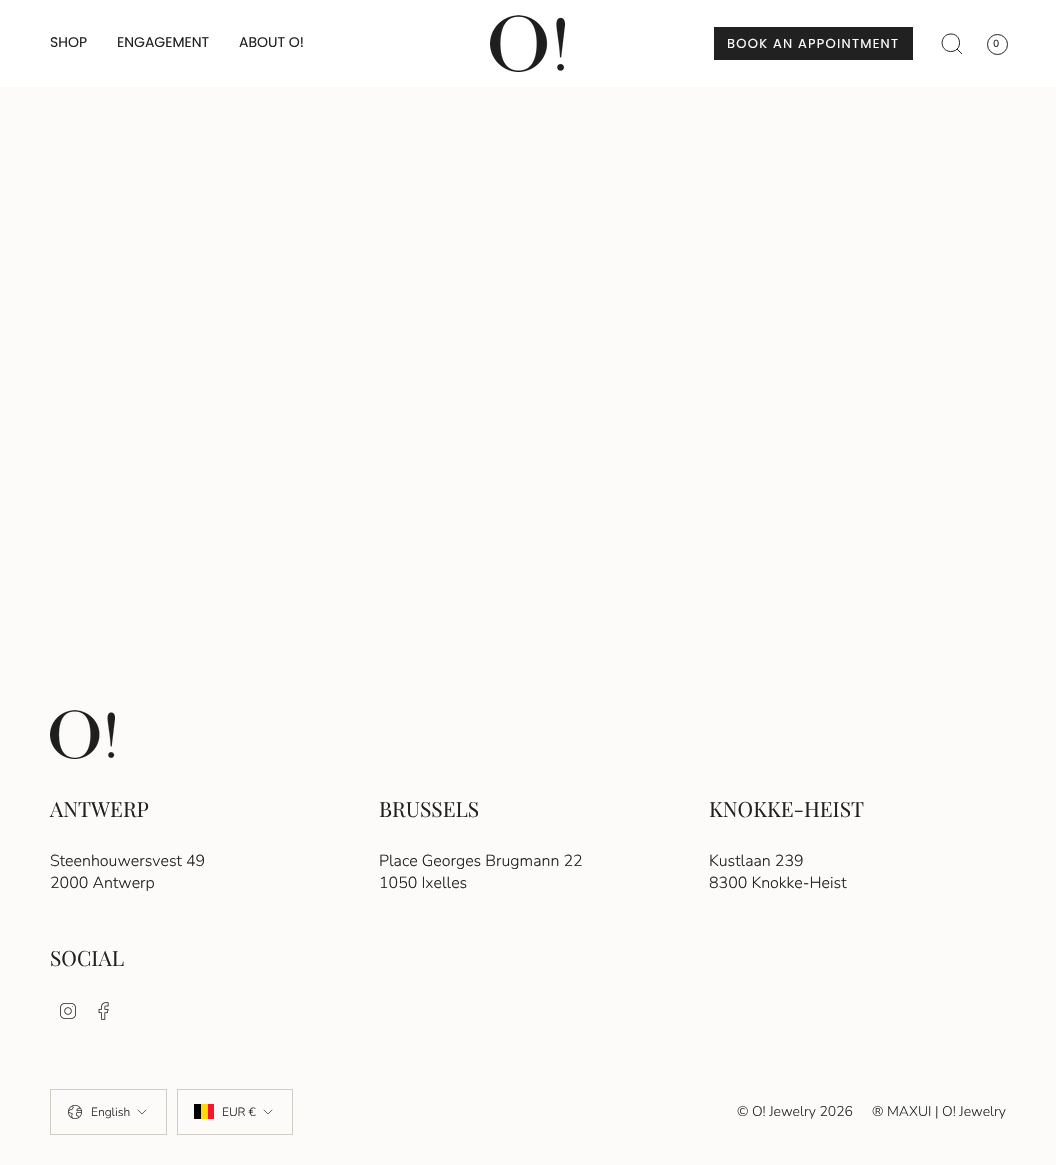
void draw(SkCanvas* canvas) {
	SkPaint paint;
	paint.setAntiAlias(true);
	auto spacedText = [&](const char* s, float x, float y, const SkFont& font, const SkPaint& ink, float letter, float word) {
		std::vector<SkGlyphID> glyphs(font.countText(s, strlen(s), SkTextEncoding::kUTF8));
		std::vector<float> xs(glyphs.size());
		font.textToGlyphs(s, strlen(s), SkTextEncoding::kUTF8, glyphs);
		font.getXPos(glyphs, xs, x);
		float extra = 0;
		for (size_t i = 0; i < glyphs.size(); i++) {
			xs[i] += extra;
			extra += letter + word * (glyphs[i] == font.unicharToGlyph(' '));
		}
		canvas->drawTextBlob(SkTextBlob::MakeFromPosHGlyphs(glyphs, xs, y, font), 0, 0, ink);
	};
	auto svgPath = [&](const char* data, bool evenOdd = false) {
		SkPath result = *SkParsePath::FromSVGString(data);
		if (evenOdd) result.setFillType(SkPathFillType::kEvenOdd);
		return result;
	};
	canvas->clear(0xfffcfbf9);
	paint.setColor(0xffffffff);
	canvas->drawRect(SkRect::MakeXYWH(0, 0, 1056, 87), paint);
	SkFont f1(fontMgr->matchFamilyStyle("Poppins", SkFontStyle::Normal()), 14);
	f1.setSubpixel(true);
	paint.setColor(0xff212121);
	canvas->drawString("SHOP", 50, 47, f1, paint);
	canvas->drawString("ENGAGEMENT", 117, 47, f1, paint);
	canvas->drawString("ABOUT O!", 239, 47, f1, paint);
	canvas->drawImageRect(SkImages::DeferredFromEncodedData(SkData::MakeFromFileName("img1.png")), SkRect::MakeXYWH(490, 15, 75, 57), SkSamplingOptions());
	canvas->drawRect(SkRect::MakeXYWH(714, 27, 199, 33), paint);
	SkFont f2(fontMgr->matchFamilyStyle("Poppins", SkFontStyle::Normal()), 13);
	f2.setSubpixel(true);
	paint.setColor(0xffffffff);
	spacedText("BOOK AN APPOINTMENT", 727, 48, f2, paint, 1.25, 0);
	paint.setStroke(true);
	paint.setStrokeWidth(1);
	paint.setColor(0xff212121);
	canvas->drawPath(svgPath("M951 34C962.5 34 962.5 52 950.5 51.5C939 51 939.5 34 951 34ZM957 49L962 54"), paint);
	canvas->drawCircle(997.5, 44.5, 10, paint);
	SkFont f3(fontMgr->matchFamilyStyle("Poppins", SkFontStyle::Normal()), 10);
	f3.setSubpixel(true);
	paint.setStroke(false);
	canvas->drawString("0", 993, 47, f3, paint);
	canvas->drawImageRect(SkImages::DeferredFromEncodedData(SkData::MakeFromFileName("img2.png")), SkRect::MakeXYWH(50, 710, 65, 49), SkSamplingOptions());
	SkFont f4(fontMgr->matchFamilyStyle("Playfair Display", SkFontStyle::Normal()), 21);
	f4.setSubpixel(true);
	canvas->drawString("ANTWERP", 50, 817, f4, paint);
	SkFont f5(fontMgr->matchFamilyStyle("Nunito", SkFontStyle(300, SkFontStyle::kNormal_Width, SkFontStyle::kUpright_Slant)), 16);
	f5.setSubpixel(true);
	canvas->drawString("Steenhouwersvest 49", 50, 866, f5, paint);
	canvas->drawString("2000 Antwerp", 50, 888, f5, paint);
	canvas->drawString("BRUSSELS", 379, 817, f4, paint);
	canvas->drawString("Place Georges Brugmann 22", 379, 866, f5, paint);
	canvas->drawString("1050 Ixelles", 379, 888, f5, paint);
	canvas->drawString("KNOKKE-HEIST", 709, 817, f4, paint);
	canvas->drawString("Kustlaan 239", 709, 866, f5, paint);
	canvas->drawString("8300 Knokke-Heist", 709, 888, f5, paint);
	canvas->drawString("SOCIAL", 50, 966, f4, paint);
	canvas->drawImageRect(SkImages::DeferredFromEncodedData(SkData::MakeFromFileName("img3.png")), SkRect::MakeXYWH(60, 1003, 16, 16), SkSamplingOptions());
	canvas->drawImageRect(SkImages::DeferredFromEncodedData(SkData::MakeFromFileName("img4.png")), SkRect::MakeXYWH(98, 1002, 11, 18), SkSamplingOptions());
	paint.setStroke(true);
	paint.setColor(0xffd1cdc4);
	canvas->drawRect(SkRect::MakeXYWH(50.5, 1089.5, 116, 45), paint);
	canvas->drawImageRect(SkImages::DeferredFromEncodedData(SkData::MakeFromFileName("img5.png")), SkRect::MakeXYWH(68, 1105, 14, 14), SkSamplingOptions());
	SkFont f6(fontMgr->matchFamilyStyle("Nunito", SkFontStyle(300, SkFontStyle::kNormal_Width, SkFontStyle::kUpright_Slant)), 12);
	f6.setSubpixel(true);
	paint.setStroke(false);
	paint.setColor(0xff212121);
	canvas->drawString("English", 91, 1116, f6, paint);
	paint.setStroke(true);
	paint.setStrokeWidth(0.7);
	paint.setStrokeCap(SkPaint::kRound_Cap);
	paint.setStrokeJoin(SkPaint::kRound_Join);
	canvas->drawPath(svgPath("M138 1110L142 1114L146 1110"), paint);
	paint.setStrokeWidth(1);
	paint.setStrokeCap(SkPaint::kButt_Cap);
	paint.setStrokeJoin(SkPaint::kMiter_Join);
	paint.setColor(0xffd1cdc4);
	canvas->drawRect(SkRect::MakeXYWH(177.5, 1089.5, 115, 45), paint);
	paint.setStroke(false);
	paint.setColor(0xff000000);
	canvas->drawRect(SkRect::MakeXYWH(194, 1104, 7, 15), paint);
	paint.setColor(0xffffd90c);
	canvas->drawRect(SkRect::MakeXYWH(201, 1104, 7, 15), paint);
	paint.setColor(0xfff31830);
	canvas->drawRect(SkRect::MakeXYWH(208, 1104, 6, 15), paint);
	paint.setColor(0xff212121);
	canvas->drawString("EUR €", 222, 1116, f6, paint);
	paint.setStroke(true);
	paint.setStrokeWidth(0.7);
	paint.setStrokeCap(SkPaint::kRound_Cap);
	paint.setStrokeJoin(SkPaint::kRound_Join);
	canvas->drawPath(svgPath("M264 1110L268 1114L272 1110"), paint);
	SkFont f7(fontMgr->matchFamilyStyle("Nunito", SkFontStyle(300, SkFontStyle::kNormal_Width, SkFontStyle::kUpright_Slant)), 14);
	f7.setSubpixel(true);
	paint.setStroke(false);
	paint.setColor(0xff282c2e);
	canvas->drawString("© O! Jewelry 2026", 737, 1116, f7, paint);
	canvas->drawString("® MAXUI | O! Jewelry", 872, 1116, f7, paint);
}
